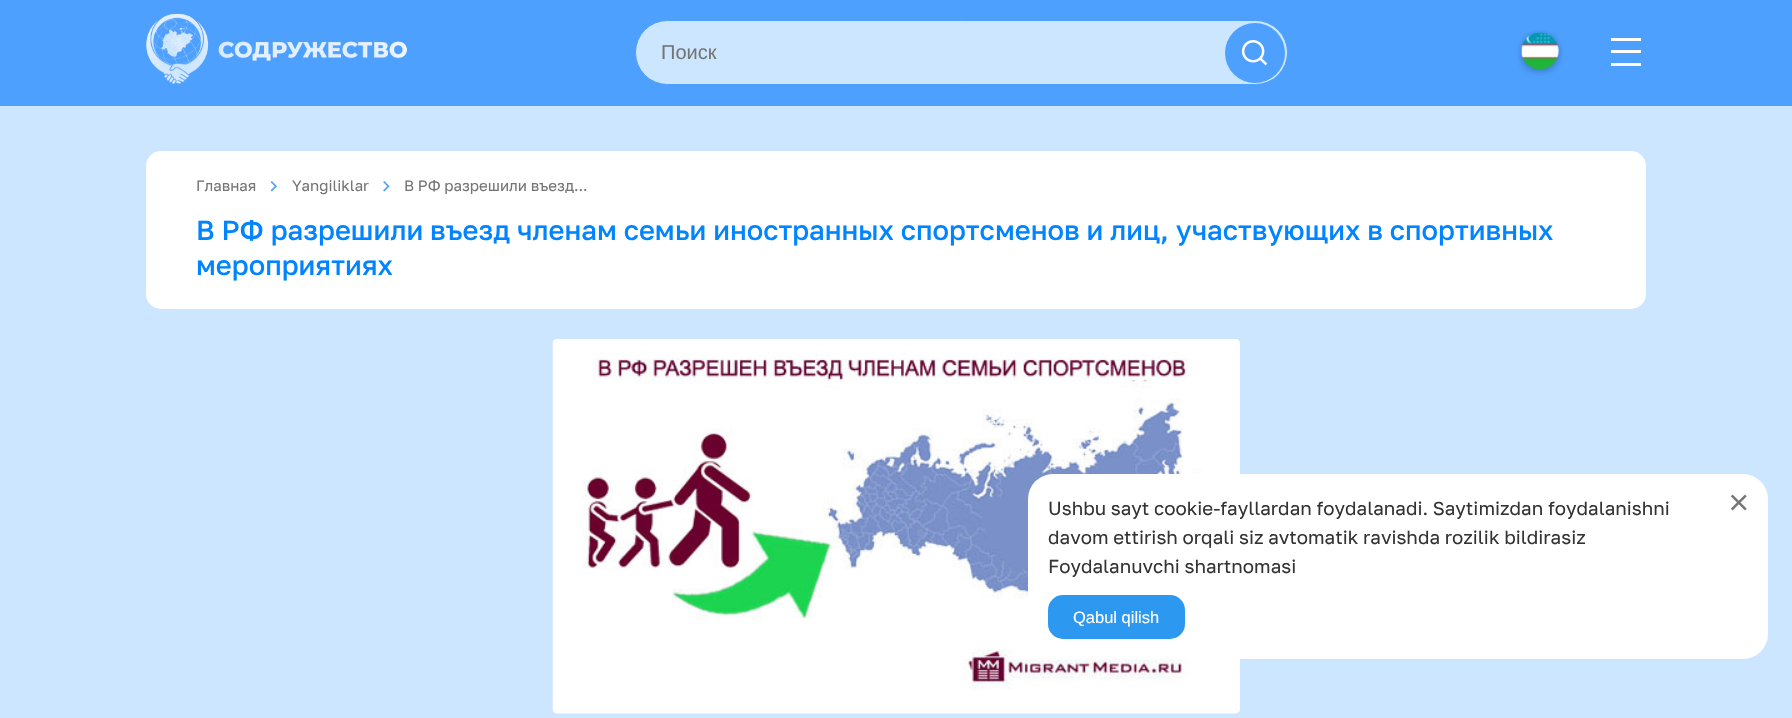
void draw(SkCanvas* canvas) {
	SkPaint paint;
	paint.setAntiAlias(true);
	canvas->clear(0xffcde6ff);
	paint.setColor(0xff4ea0ff);
	canvas->drawRect(SkRect::MakeXYWH(0, 0, 1792, 106), paint);
	canvas->drawImageRect(SkImages::DeferredFromEncodedData(SkData::MakeFromFileName("img1.png")), SkRect::MakeXYWH(146, 13, 261, 71), SkSamplingOptions());
	paint.setColor(0xffcde6ff);
	canvas->drawRoundRect(SkRect::MakeXYWH(635.5, 20.5, 652, 64), 32, 32, paint);
	paint.setStroke(true);
	paint.setStrokeWidth(1);
	paint.setColor(0xff4ea0ff);
	canvas->drawRoundRect(SkRect::MakeXYWH(635.5, 20.5, 652, 64), 32, 32, paint);
	SkFont f1(fontMgr->matchFamilyStyle("Liberation Sans", SkFontStyle::Normal()), 20);
	f1.setSubpixel(true);
	paint.setStroke(false);
	paint.setColor(0xff757575);
	canvas->drawString("Поиск", 661, 59, f1, paint);
	paint.setColor(0xff4ea0ff);
	canvas->drawCircle(1255, 53, 30, paint);
	canvas->drawImageRect(SkImages::DeferredFromEncodedData(SkData::MakeFromFileName("img2.png")), SkRect::MakeXYWH(1241, 40, 27, 26), SkSamplingOptions());
	canvas->drawImageRect(SkImages::DeferredFromEncodedData(SkData::MakeFromFileName("img3.png")), SkRect::MakeXYWH(1517, 30, 46, 46), SkSamplingOptions());
	paint.setColor(0xffffffff);
	canvas->drawRect(SkRect::MakeXYWH(1611, 38, 30, 3), paint);
	canvas->drawRect(SkRect::MakeXYWH(1611, 50, 30, 3), paint);
	canvas->drawRect(SkRect::MakeXYWH(1611, 63, 30, 3), paint);
	canvas->drawRoundRect(SkRect::MakeXYWH(146, 151, 1500, 158), 15, 15, paint);
	SkFont f2(fontMgr->matchFamilyStyle("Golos", SkFontStyle::Normal()), 15);
	f2.setSubpixel(true);
	paint.setColor(0xff757575);
	canvas->drawString("Главная", 196, 191, f2, paint);
	canvas->drawImageRect(SkImages::DeferredFromEncodedData(SkData::MakeFromFileName("img4.png")), SkRect::MakeXYWH(270, 181, 7, 11), SkSamplingOptions());
	canvas->drawString("Yangiliklar", 292, 191, f2, paint);
	canvas->drawImageRect(SkImages::DeferredFromEncodedData(SkData::MakeFromFileName("img5.png")), SkRect::MakeXYWH(383, 181, 7, 11), SkSamplingOptions());
	canvas->drawString("В РФ разрешили въезд...", 404, 191, f2, paint);
	SkFont f3(fontMgr->matchFamilyStyle("Golos", SkFontStyle(500, SkFontStyle::kNormal_Width, SkFontStyle::kUpright_Slant)), 27.5);
	f3.setSubpixel(true);
	paint.setColor(0xff0084ff);
	canvas->drawString("В РФ разрешили въезд членам семьи иностранных спортсменов и лиц, участвующих в спортивных", 196, 240, f3, paint);
	canvas->drawString("мероприятиях", 196, 275, f3, paint);
	canvas->drawImageRect(SkImages::DeferredFromEncodedData(SkData::MakeFromFileName("img6.png")), SkRect::MakeXYWH(552, 339, 688, 375), SkSamplingOptions());
	paint.setColor(0xffffffff);
	canvas->drawRoundRect(SkRect::MakeXYWH(1028, 474, 740, 185), 25, 25, paint);
	SkFont f4(fontMgr->matchFamilyStyle("Golos", SkFontStyle::Normal()), 18.75);
	f4.setSubpixel(true);
	paint.setColor(0xff333333);
	canvas->drawString("Ushbu sayt cookie-fayllardan foydalanadi. Saytimizdan foydalanishni", 1048, 515, f4, paint);
	canvas->drawString("davom ettirish orqali siz avtomatik ravishda rozilik bildirasiz", 1048, 544, f4, paint);
	canvas->drawString("Foydalanuvchi shartnomasi", 1048, 573, f4, paint);
	canvas->drawImageRect(SkImages::DeferredFromEncodedData(SkData::MakeFromFileName("img7.png")), SkRect::MakeXYWH(1730, 494, 17, 17), SkSamplingOptions());
	paint.setColor(0xff2c98f0);
	canvas->drawRoundRect(SkRect::MakeXYWH(1048, 595, 137, 44), 15, 15, paint);
	SkFont f5(fontMgr->matchFamilyStyle("Liberation Sans", SkFontStyle::Normal()), 16.5);
	f5.setSubpixel(true);
	paint.setColor(0xffffffff);
	canvas->drawString("Qabul qilish", 1073, 623, f5, paint);
}
